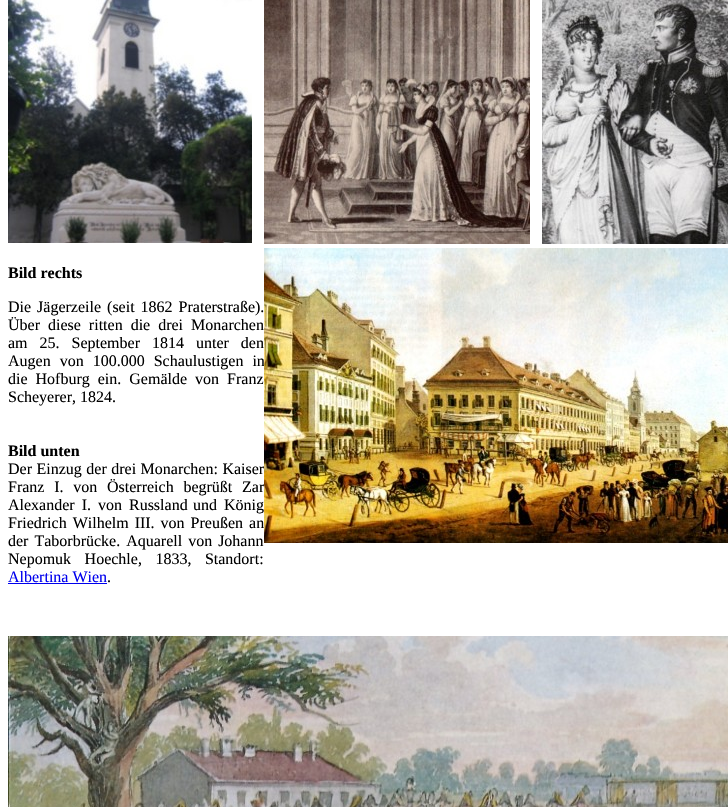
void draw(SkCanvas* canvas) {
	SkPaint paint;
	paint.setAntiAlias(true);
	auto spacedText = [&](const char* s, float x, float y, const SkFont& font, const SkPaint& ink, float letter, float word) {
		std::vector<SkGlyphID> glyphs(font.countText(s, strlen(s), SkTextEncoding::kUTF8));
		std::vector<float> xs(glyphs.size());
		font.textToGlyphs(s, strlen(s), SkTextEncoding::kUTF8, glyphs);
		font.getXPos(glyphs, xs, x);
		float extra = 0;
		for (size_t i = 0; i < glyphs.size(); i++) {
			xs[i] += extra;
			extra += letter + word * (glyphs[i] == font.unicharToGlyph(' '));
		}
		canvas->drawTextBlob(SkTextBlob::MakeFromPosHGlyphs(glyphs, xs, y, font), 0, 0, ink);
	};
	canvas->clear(0xffffffff);
	canvas->drawImageRect(SkImages::DeferredFromEncodedData(SkData::MakeFromFileName("img1.png")), SkRect::MakeXYWH(8, 0, 244, 243), SkSamplingOptions());
	canvas->drawImageRect(SkImages::DeferredFromEncodedData(SkData::MakeFromFileName("img2.png")), SkRect::MakeXYWH(264, 0, 266, 244), SkSamplingOptions());
	canvas->drawImageRect(SkImages::DeferredFromEncodedData(SkData::MakeFromFileName("img3.png")), SkRect::MakeXYWH(542, 0, 186, 244), SkSamplingOptions());
	SkFont f1(fontMgr->matchFamilyStyle("Liberation Serif", SkFontStyle::Bold()), 16);
	f1.setSubpixel(true);
	paint.setColor(0xff000000);
	canvas->drawString("Bild rechts", 8, 278, f1, paint);
	SkFont f2(fontMgr->matchFamilyStyle("Liberation Serif", SkFontStyle::Normal()), 16);
	f2.setSubpixel(true);
	spacedText("Die Jägerzeile (seit 1862 Praterstraße).", 8, 312, f2, paint, 0, 2);
	spacedText("Über diese ritten die drei Monarchen", 8, 330, f2, paint, 0, 4);
	spacedText("am 25. September 1814 unter den", 8, 348, f2, paint, 0, 8);
	spacedText("Augen von 100.000 Schaulustigen in", 8, 366, f2, paint, 0, 5);
	spacedText("die Hofburg ein. Gemälde von Franz", 8, 384, f2, paint, 0, 4);
	canvas->drawString("Scheyerer, 1824.", 8, 402, f2, paint);
	canvas->drawString("Bild unten", 8, 456, f1, paint);
	spacedText("Der Einzug der drei Monarchen: Kaiser", 8, 474, f2, paint, 0, 0.5);
	spacedText("Franz I. von Österreich begrüßt Zar", 8, 492, f2, paint, 0, 5.75);
	spacedText("Alexander I. von Russland", 8, 510, f2, paint, 0, 3);
	spacedText("und König", 193, 510, f2, paint, 0, 3);
	spacedText("Friedrich Wilhelm III. von Preußen an", 8, 528, f2, paint, 0, 2);
	spacedText("der Taborbrücke. Aquarell von Johann", 8, 546, f2, paint, 0, 2);
	spacedText("Nepomuk Hoechle, 1833, Standort:", 8, 564, f2, paint, 0, 9.5);
	paint.setColor(0xff0000ee);
	canvas->drawString("Albertina Wien", 8, 582, f2, paint);
	paint.setColor(0xff000000);
	canvas->drawString(".", 107, 582, f2, paint);
	paint.setColor(0xff0000ee);
	canvas->drawRect(SkRect::MakeXYWH(8, 583, 99, 1), paint);
	canvas->drawImageRect(SkImages::DeferredFromEncodedData(SkData::MakeFromFileName("img4.png")), SkRect::MakeXYWH(264, 248, 464, 295), SkSamplingOptions());
	canvas->drawImageRect(SkImages::DeferredFromEncodedData(SkData::MakeFromFileName("img5.png")), SkRect::MakeXYWH(8, 636, 720, 171), SkSamplingOptions());
}
